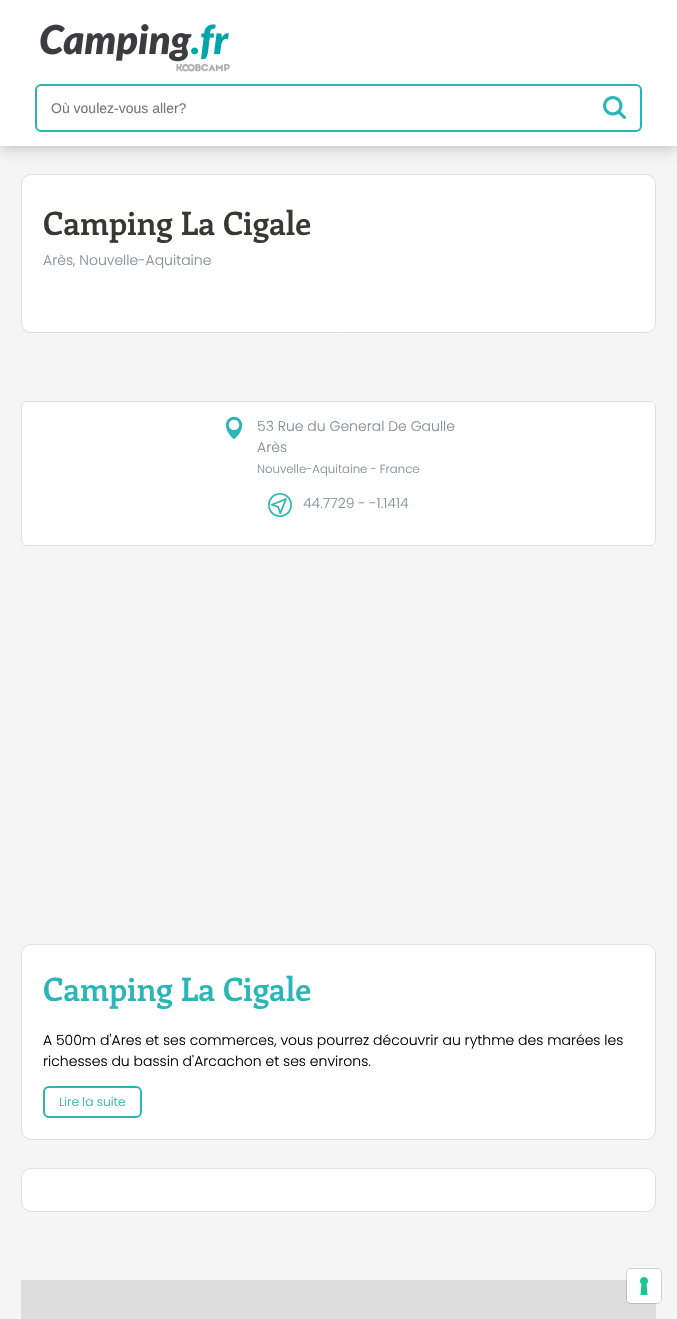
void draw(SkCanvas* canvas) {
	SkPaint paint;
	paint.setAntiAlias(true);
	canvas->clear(0xfff5f5f5);
	paint.setColor(0x663c3c3c);
	paint.setMaskFilter(SkMaskFilter::MakeBlur(kNormal_SkBlurStyle, 7.5));
	canvas->drawRect(SkRect::MakeXYWH(0, 0, 677, 146), paint);
	paint.setMaskFilter(nullptr);
	paint.setColor(0xffffffff);
	canvas->drawRect(SkRect::MakeXYWH(0, 0, 677, 146), paint);
	canvas->drawImageRect(SkImages::DeferredFromEncodedData(SkData::MakeFromFileName("img1.png")), SkRect::MakeXYWH(40, 24, 190, 48), SkSamplingOptions());
	paint.setStroke(true);
	paint.setStrokeWidth(2);
	paint.setColor(0xff2bb5b6);
	canvas->drawRoundRect(SkRect::MakeXYWH(36, 85, 605, 46), 5, 5, paint);
	SkFont f1(fontMgr->matchFamilyStyle("Liberation Sans", SkFontStyle::Normal()), 14);
	f1.setSubpixel(true);
	paint.setStroke(false);
	paint.setColor(0xff757575);
	canvas->drawString("Où voulez-vous aller?", 51, 113, f1, paint);
	canvas->drawImageRect(SkImages::DeferredFromEncodedData(SkData::MakeFromFileName("img2.png")), SkRect::MakeXYWH(603, 96, 23, 23), SkSamplingOptions());
	paint.setColor(0xffffffff);
	canvas->drawRoundRect(SkRect::MakeXYWH(21.5, 174.5, 634, 158), 9.5, 9.5, paint);
	paint.setStroke(true);
	paint.setStrokeWidth(1);
	paint.setColor(0xffdfdfdf);
	canvas->drawRoundRect(SkRect::MakeXYWH(21.5, 174.5, 634, 158), 9.5, 9.5, paint);
	SkFont f2(fontMgr->matchFamilyStyle("Enriqueta", SkFontStyle(600, SkFontStyle::kNormal_Width, SkFontStyle::kUpright_Slant)), 32.25);
	f2.setSubpixel(true);
	paint.setStroke(false);
	paint.setColor(0xff373736);
	canvas->drawString("Camping La Cigale", 43, 235, f2, paint);
	SkFont f3(fontMgr->matchFamilyStyle("Poppins", SkFontStyle(300, SkFontStyle::kNormal_Width, SkFontStyle::kUpright_Slant)), 14);
	f3.setSubpixel(true);
	paint.setColor(0xff858f96);
	canvas->drawString("Arès, Nouvelle-Aquitaine", 43, 265, f3, paint);
	paint.setColor(0xffffffff);
	canvas->drawRoundRect(SkRect::MakeXYWH(21.5, 401.5, 634, 144), 5.5, 5.5, paint);
	paint.setStroke(true);
	paint.setColor(0xffdfdfdf);
	canvas->drawRoundRect(SkRect::MakeXYWH(21.5, 401.5, 634, 144), 5.5, 5.5, paint);
	canvas->drawImageRect(SkImages::DeferredFromEncodedData(SkData::MakeFromFileName("img3.png")), SkRect::MakeXYWH(225, 416, 18, 23), SkSamplingOptions());
	paint.setStroke(false);
	paint.setColor(0xff858f96);
	canvas->drawString("53 Rue du General De Gaulle", 257, 431, f3, paint);
	canvas->drawString("Arès", 257, 452, f3, paint);
	SkFont f4(fontMgr->matchFamilyStyle("Poppins", SkFontStyle(300, SkFontStyle::kNormal_Width, SkFontStyle::kUpright_Slant)), 11.7);
	f4.setSubpixel(true);
	canvas->drawString("Nouvelle-Aquitaine - France", 257, 473, f4, paint);
	canvas->drawImageRect(SkImages::DeferredFromEncodedData(SkData::MakeFromFileName("img4.png")), SkRect::MakeXYWH(268, 493, 24, 24), SkSamplingOptions());
	canvas->drawString("44.7729 - -1.1414", 303, 508, f3, paint);
	paint.setColor(0xffffffff);
	canvas->drawRoundRect(SkRect::MakeXYWH(21.5, 944.5, 634, 195), 9.5, 9.5, paint);
	paint.setStroke(true);
	paint.setColor(0xffdfdfdf);
	canvas->drawRoundRect(SkRect::MakeXYWH(21.5, 944.5, 634, 195), 9.5, 9.5, paint);
	paint.setStroke(false);
	paint.setColor(0xff2bb5b6);
	canvas->drawString("Camping La Cigale", 43, 1001, f2, paint);
	paint.setColor(0xff000000);
	canvas->drawString("A 500m d'Ares et ses commerces, vous pourrez découvrir au rythme des marées les", 43, 1045, f3, paint);
	canvas->drawString("richesses du bassin d'Arcachon et ses environs.", 43, 1066, f3, paint);
	paint.setStroke(true);
	paint.setStrokeWidth(2);
	paint.setColor(0xff2bb5b6);
	canvas->drawRoundRect(SkRect::MakeXYWH(44, 1087, 97, 30), 5, 5, paint);
	SkFont f5(fontMgr->matchFamilyStyle("Poppins", SkFontStyle(300, SkFontStyle::kNormal_Width, SkFontStyle::kUpright_Slant)), 12.25);
	f5.setSubpixel(true);
	paint.setStroke(false);
	canvas->drawString("Lire la suite", 59, 1106, f5, paint);
	paint.setColor(0xffffffff);
	canvas->drawRoundRect(SkRect::MakeXYWH(21.5, 1168.5, 634, 43), 9.5, 9.5, paint);
	paint.setStroke(true);
	paint.setStrokeWidth(1);
	paint.setColor(0xffdfdfdf);
	canvas->drawRoundRect(SkRect::MakeXYWH(21.5, 1168.5, 634, 43), 9.5, 9.5, paint);
	paint.setStroke(false);
	paint.setColor(0xffdddddd);
	canvas->drawRect(SkRect::MakeXYWH(21, 1280, 635, 39), paint);
	paint.setStroke(true);
	paint.setColor(0x26000000);
	canvas->drawRoundRect(SkRect::MakeXYWH(626.5, 1268.5, 35, 35), 4.5, 4.5, paint);
	paint.setStroke(false);
	paint.setColor(0xffffffff);
	canvas->drawRoundRect(SkRect::MakeXYWH(627, 1269, 34, 34), 4, 4, paint);
	canvas->drawImageRect(SkImages::DeferredFromEncodedData(SkData::MakeFromFileName("img5.png")), SkRect::MakeXYWH(640, 1277, 8, 18), SkSamplingOptions());
}
